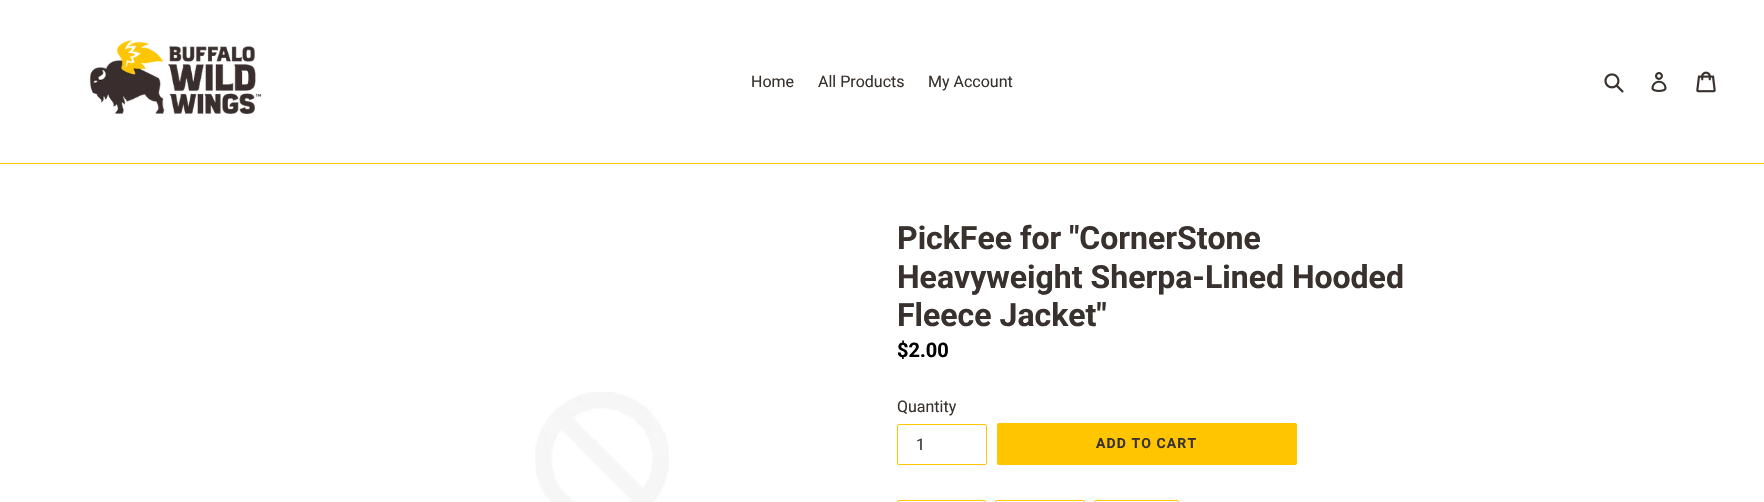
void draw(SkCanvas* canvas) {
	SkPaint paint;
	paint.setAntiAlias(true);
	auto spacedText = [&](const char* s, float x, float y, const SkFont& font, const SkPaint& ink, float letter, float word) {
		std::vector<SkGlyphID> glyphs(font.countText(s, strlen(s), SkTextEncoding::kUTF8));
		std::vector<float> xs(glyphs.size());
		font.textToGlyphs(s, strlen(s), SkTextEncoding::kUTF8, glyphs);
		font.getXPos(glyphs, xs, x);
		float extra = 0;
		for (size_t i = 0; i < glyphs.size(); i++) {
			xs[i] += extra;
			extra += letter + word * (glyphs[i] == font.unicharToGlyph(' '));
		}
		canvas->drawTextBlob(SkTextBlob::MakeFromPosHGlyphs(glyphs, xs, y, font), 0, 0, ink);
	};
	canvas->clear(0xffffffff);
	paint.setColor(0xffffc600);
	canvas->drawRect(SkRect::MakeXYWH(0, 163, 1764, 1), paint);
	canvas->drawImageRect(SkImages::DeferredFromEncodedData(SkData::MakeFromFileName("img1.png")), SkRect::MakeXYWH(89, 39, 173, 75), SkSamplingOptions());
	SkFont f1(fontMgr->matchFamilyStyle("Roboto", SkFontStyle::Normal()), 16);
	f1.setSubpixel(true);
	paint.setColor(0xff38312d);
	canvas->drawString("Home", 751, 87, f1, paint);
	canvas->drawString("All Products", 818, 87, f1, paint);
	canvas->drawString("My Account", 928, 87, f1, paint);
	canvas->drawImageRect(SkImages::DeferredFromEncodedData(SkData::MakeFromFileName("img2.png")), SkRect::MakeXYWH(1604, 73, 20, 20), SkSamplingOptions());
	canvas->drawImageRect(SkImages::DeferredFromEncodedData(SkData::MakeFromFileName("img3.png")), SkRect::MakeXYWH(1651, 72, 16, 20), SkSamplingOptions());
	canvas->drawImageRect(SkImages::DeferredFromEncodedData(SkData::MakeFromFileName("img4.png")), SkRect::MakeXYWH(1696, 71, 20, 22), SkSamplingOptions());
	canvas->drawImageRect(SkImages::DeferredFromEncodedData(SkData::MakeFromFileName("img5.png")), SkRect::MakeXYWH(535, 392, 134, 110), SkSamplingOptions());
	SkFont f2(fontMgr->matchFamilyStyle("Roboto", SkFontStyle::Bold()), 32);
	f2.setSubpixel(true);
	canvas->drawString("PickFee for \"CornerStone", 897, 249, f2, paint);
	canvas->drawString("Heavyweight Sherpa-Lined Hooded", 897, 288, f2, paint);
	canvas->drawString("Fleece Jacket\"", 897, 326, f2, paint);
	SkFont f3(fontMgr->matchFamilyStyle("Roboto", SkFontStyle::Bold()), 20);
	f3.setSubpixel(true);
	paint.setColor(0xff000000);
	canvas->drawString("$2.00", 897, 357, f3, paint);
	paint.setColor(0xff38312d);
	canvas->drawString("Quantity", 897, 412, f1, paint);
	paint.setStroke(true);
	paint.setStrokeWidth(1);
	paint.setColor(0xffffc600);
	canvas->drawRoundRect(SkRect::MakeXYWH(897.5, 424.5, 89, 40), 1.5, 1.5, paint);
	paint.setStroke(false);
	paint.setColor(0xff38312d);
	canvas->drawString("1", 916, 450, f1, paint);
	paint.setColor(0xffffc600);
	canvas->drawRoundRect(SkRect::MakeXYWH(997, 423, 300, 42), 2, 2, paint);
	SkFont f4(fontMgr->matchFamilyStyle("Roboto", SkFontStyle::Bold()), 14);
	f4.setSubpixel(true);
	paint.setColor(0xff38312d);
	spacedText("ADD TO CART", 1096, 448, f4, paint, 1.1, 0);
	paint.setStroke(true);
	paint.setColor(0xffffc600);
	canvas->drawRoundRect(SkRect::MakeXYWH(897.5, 500.5, 88, 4), 1.5, 1.5, paint);
	canvas->drawRoundRect(SkRect::MakeXYWH(995.5, 500.5, 89, 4), 1.5, 1.5, paint);
	canvas->drawRoundRect(SkRect::MakeXYWH(1094.5, 500.5, 84, 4), 1.5, 1.5, paint);
}
